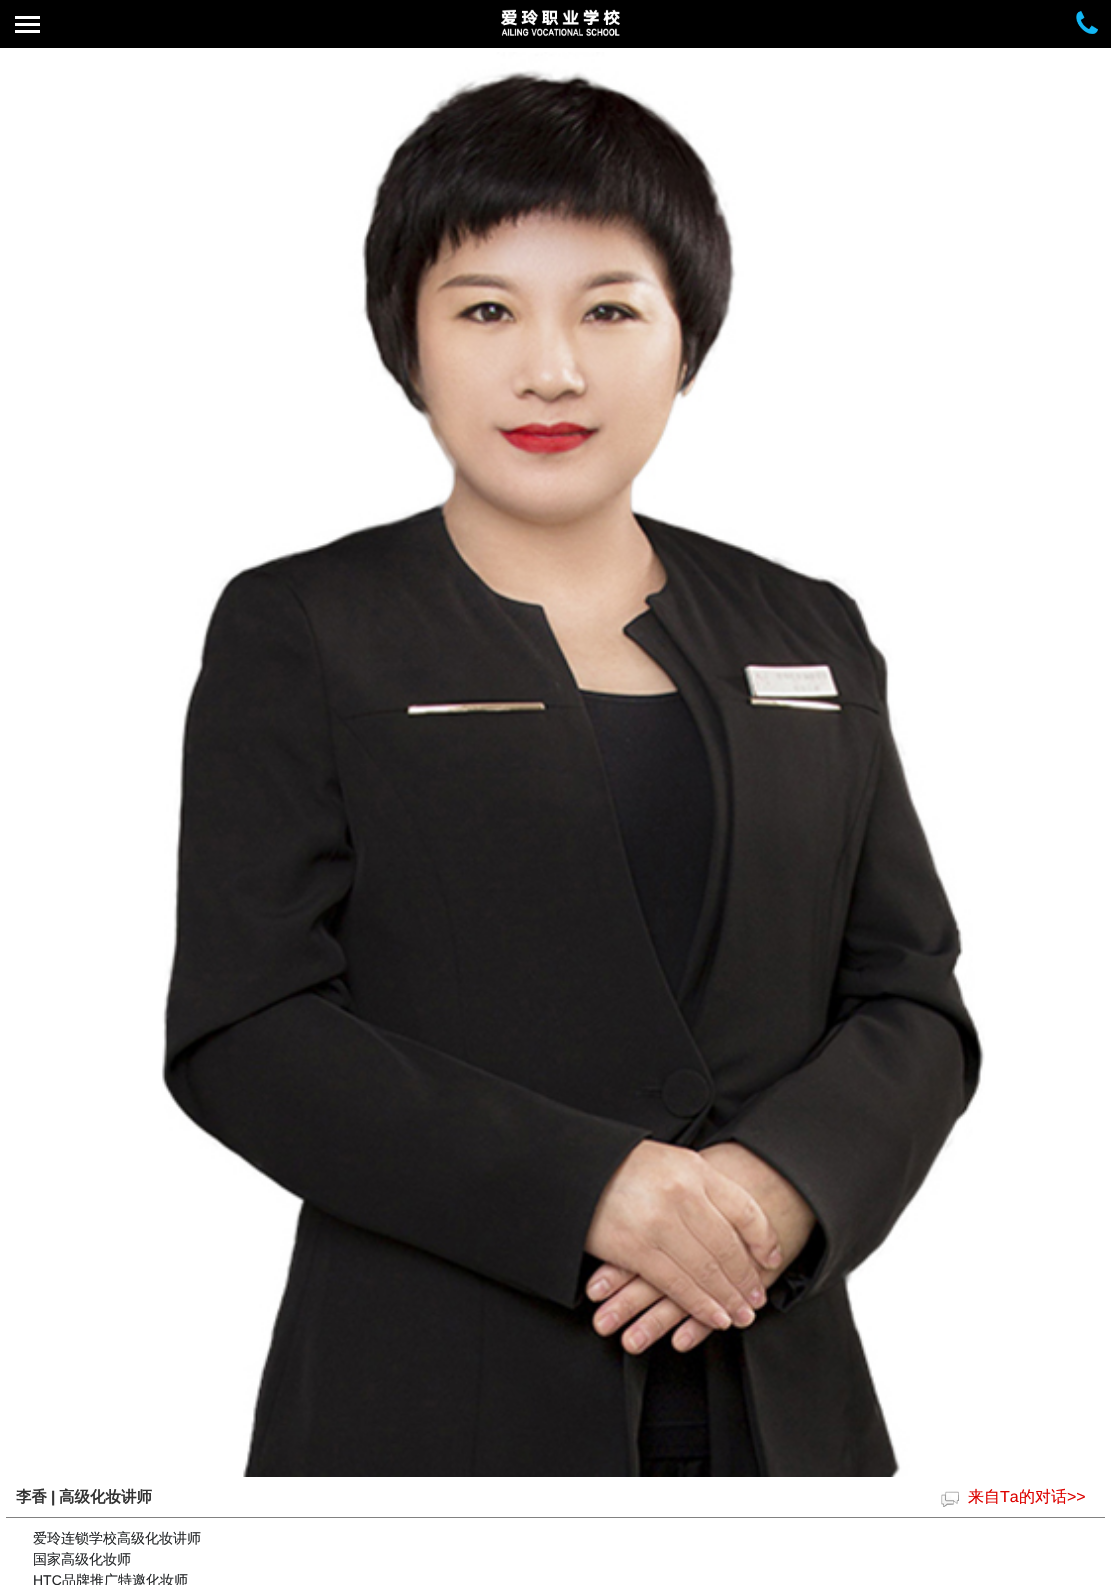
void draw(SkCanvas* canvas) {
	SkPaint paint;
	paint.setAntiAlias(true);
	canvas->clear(0xffffffff);
	paint.setColor(0xff000000);
	canvas->drawRect(SkRect::MakeXYWH(0, 0, 1111, 48), paint);
	paint.setColor(0xffffffff);
	canvas->drawRect(SkRect::MakeXYWH(15, 23, 25, 3), paint);
	canvas->drawRect(SkRect::MakeXYWH(15, 16, 25, 3), paint);
	canvas->drawRect(SkRect::MakeXYWH(15, 30, 25, 3), paint);
	canvas->drawImageRect(SkImages::DeferredFromEncodedData(SkData::MakeFromFileName("img1.png")), SkRect::MakeXYWH(501, 9, 119, 28), SkSamplingOptions());
	canvas->drawImageRect(SkImages::DeferredFromEncodedData(SkData::MakeFromFileName("img2.png")), SkRect::MakeXYWH(1076, 10, 22, 24), SkSamplingOptions());
	canvas->drawImageRect(SkImages::DeferredFromEncodedData(SkData::MakeFromFileName("img3.png")), SkRect::MakeXYWH(161, 52, 824, 1425), SkSamplingOptions());
	paint.setColor(0xff818181);
	canvas->drawRect(SkRect::MakeXYWH(6, 1517, 1099, 1), paint);
	SkFont f1(fontMgr->matchFamilyStyle("WenQuanYi Zen Hei", SkFontStyle::Bold()), 15.5);
	f1.setSubpixel(true);
	paint.setColor(0xff333333);
	canvas->drawString("李香", 16, 1502, f1, paint);
	SkFont f2(fontMgr->matchFamilyStyle("Liberation Sans", SkFontStyle::Bold()), 15.5);
	f2.setSubpixel(true);
	canvas->drawString("|", 51, 1502, f2, paint);
	canvas->drawString("高级化妆讲师", 59, 1502, f1, paint);
	canvas->drawImageRect(SkImages::DeferredFromEncodedData(SkData::MakeFromFileName("img4.png")), SkRect::MakeXYWH(941, 1491, 18, 16), SkSamplingOptions());
	SkFont f3(fontMgr->matchFamilyStyle("WenQuanYi Zen Hei", SkFontStyle(500, SkFontStyle::kNormal_Width, SkFontStyle::kUpright_Slant)), 16);
	f3.setSubpixel(true);
	paint.setColor(0xffdd0200);
	canvas->drawString("来自", 968, 1502, f3, paint);
	SkFont f4(fontMgr->matchFamilyStyle("Liberation Sans", SkFontStyle::Normal()), 16);
	f4.setSubpixel(true);
	canvas->drawString("Ta", 1000, 1502, f4, paint);
	canvas->drawString("的对话", 1019, 1502, f3, paint);
	canvas->drawString(">>", 1067, 1502, f4, paint);
	SkFont f5(fontMgr->matchFamilyStyle("WenQuanYi Zen Hei", SkFontStyle(500, SkFontStyle::kNormal_Width, SkFontStyle::kUpright_Slant)), 14);
	f5.setSubpixel(true);
	paint.setColor(0xff26282a);
	canvas->drawString("爱玲连锁学校高级化妆讲师", 33, 1543, f5, paint);
	canvas->drawString("国家高级化妆师", 33, 1564, f5, paint);
	SkFont f6(fontMgr->matchFamilyStyle("Liberation Sans", SkFontStyle::Normal()), 14);
	f6.setSubpixel(true);
	canvas->drawString("HTC", 33, 1585, f6, paint);
	canvas->drawString("品牌推广特邀化妆师", 62, 1585, f5, paint);
}
